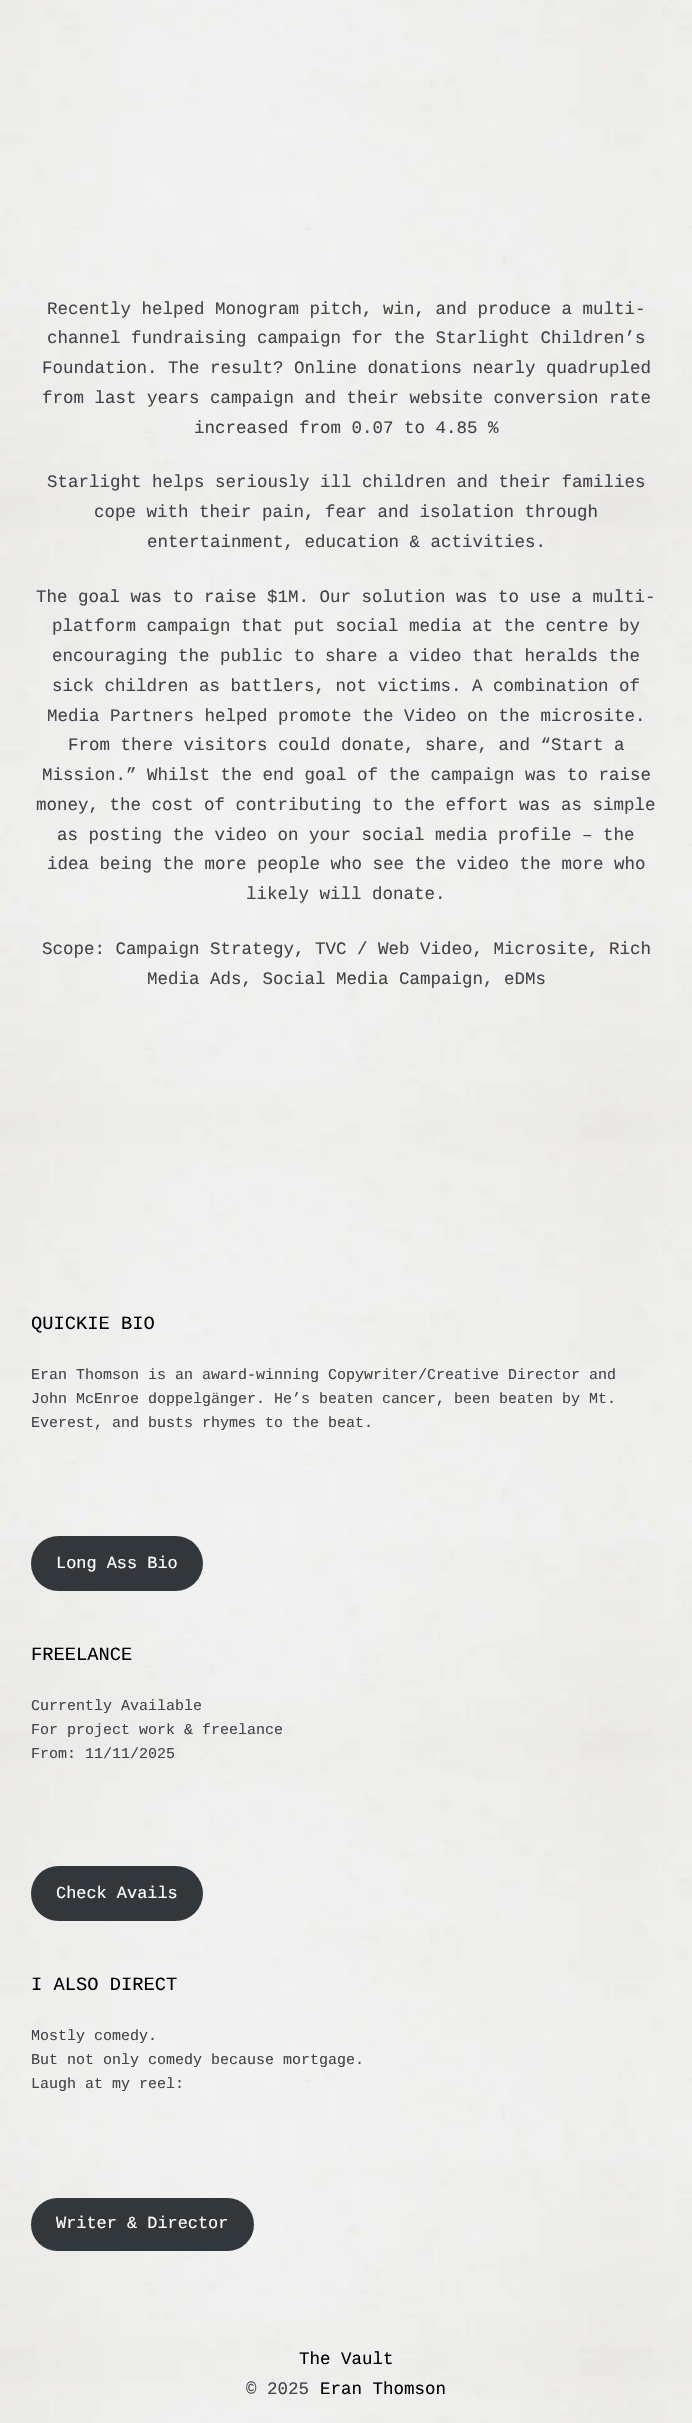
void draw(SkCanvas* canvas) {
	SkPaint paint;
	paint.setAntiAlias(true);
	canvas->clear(0xffffffff);
	canvas->drawImageRect(SkImages::DeferredFromEncodedData(SkData::MakeFromFileName("img1.png")), SkRect::MakeXYWH(0, 0, 692, 2423), SkSamplingOptions());
	SkFont f1(fontMgr->matchFamilyStyle("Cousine", SkFontStyle::Normal()), 17.5);
	f1.setSubpixel(true);
	paint.setColor(0xff444444);
	canvas->drawString("Recently helped Monogram pitch, win, and produce a multi-", 47, 314, f1, paint);
	canvas->drawString("channel fundraising campaign for the Starlight Children’s", 47, 343, f1, paint);
	canvas->drawString("Foundation. The result? Online donations nearly quadrupled", 42, 373, f1, paint);
	canvas->drawString("from last years campaign and their website conversion rate", 42, 403, f1, paint);
	canvas->drawString("increased from 0.07 to 4.85 %", 194, 433, f1, paint);
	canvas->drawString("Starlight helps seriously ill children and their families", 47, 487, f1, paint);
	canvas->drawString("cope with their pain, fear and isolation through", 94, 517, f1, paint);
	canvas->drawString("entertainment, education & activities.", 147, 547, f1, paint);
	canvas->drawString("The goal was to raise $1M. Our solution was to use a multi-", 36, 602, f1, paint);
	canvas->drawString("platform campaign that put social media at the centre by", 52, 631, f1, paint);
	canvas->drawString("encouraging the public to share a video that heralds the", 52, 661, f1, paint);
	canvas->drawString("sick children as battlers, not victims. A combination of", 52, 691, f1, paint);
	canvas->drawString("Media Partners helped promote the Video on the microsite.", 47, 721, f1, paint);
	canvas->drawString("From there visitors could donate, share, and “Start a", 68, 750, f1, paint);
	canvas->drawString("Mission.” Whilst the end goal of the campaign was to raise", 42, 780, f1, paint);
	canvas->drawString("money, the cost of contributing to the effort was as simple", 36, 810, f1, paint);
	canvas->drawString("as posting the video on your social media profile – the", 57, 840, f1, paint);
	canvas->drawString("idea being the more people who see the video the more who", 47, 869, f1, paint);
	canvas->drawString("likely will donate.", 246, 899, f1, paint);
	canvas->drawString("Scope: Campaign Strategy, TVC / Web Video, Microsite, Rich", 42, 954, f1, paint);
	canvas->drawString("Media Ads, Social Media Campaign, eDMs", 147, 984, f1, paint);
	SkFont f2(fontMgr->matchFamilyStyle("Cousine", SkFontStyle::Normal()), 18.75);
	f2.setSubpixel(true);
	paint.setColor(0xff000000);
	canvas->drawString("QUICKIE BIO", 31, 1329, f2, paint);
	SkFont f3(fontMgr->matchFamilyStyle("Cousine", SkFontStyle::Normal()), 15);
	f3.setSubpixel(true);
	paint.setColor(0xff444444);
	canvas->drawString("Eran Thomson is an award-winning Copywriter/Creative Director and", 31, 1379, f3, paint);
	canvas->drawString("John McEnroe doppelgänger. He’s beaten cancer, been beaten by Mt.", 31, 1403, f3, paint);
	canvas->drawString("Everest, and busts rhymes to the beat.", 31, 1427, f3, paint);
	paint.setColor(0xff32373c);
	canvas->drawRoundRect(SkRect::MakeXYWH(31, 1536, 172, 55), 27.5, 27.5, paint);
	SkFont f4(fontMgr->matchFamilyStyle("Cousine", SkFontStyle::Normal()), 16.9);
	f4.setSubpixel(true);
	paint.setColor(0xffffffff);
	canvas->drawString("Long Ass Bio", 56, 1568, f4, paint);
	paint.setColor(0xff000000);
	canvas->drawString("FREELANCE", 31, 1660, f2, paint);
	paint.setColor(0xff444444);
	canvas->drawString("Currently Available", 31, 1710, f3, paint);
	canvas->drawString("For project work & freelance", 31, 1734, f3, paint);
	canvas->drawString("From: 11/11/2025", 31, 1758, f3, paint);
	paint.setColor(0xff32373c);
	canvas->drawRoundRect(SkRect::MakeXYWH(31, 1866, 172, 55), 27.5, 27.5, paint);
	paint.setColor(0xffffffff);
	canvas->drawString("Check Avails", 56, 1898, f4, paint);
	paint.setColor(0xff000000);
	canvas->drawString("I ALSO DIRECT", 31, 1990, f2, paint);
	paint.setColor(0xff444444);
	canvas->drawString("Mostly comedy.", 31, 2040, f3, paint);
	canvas->drawString("But not only comedy because mortgage.", 31, 2064, f3, paint);
	canvas->drawString("Laugh at my reel:", 31, 2088, f3, paint);
	paint.setColor(0xff32373c);
	canvas->drawRoundRect(SkRect::MakeXYWH(31, 2198, 223, 53), 26.5, 26.5, paint);
	paint.setColor(0xffffffff);
	canvas->drawString("Writer & Director", 56, 2228, f4, paint);
	paint.setColor(0xff000000);
	canvas->drawString("The Vault", 299, 2364, f1, paint);
	paint.setColor(0xff444444);
	canvas->drawString("© 2025", 246, 2394, f1, paint);
	paint.setColor(0xff000000);
	canvas->drawString("Eran Thomson", 320, 2394, f1, paint);
}
